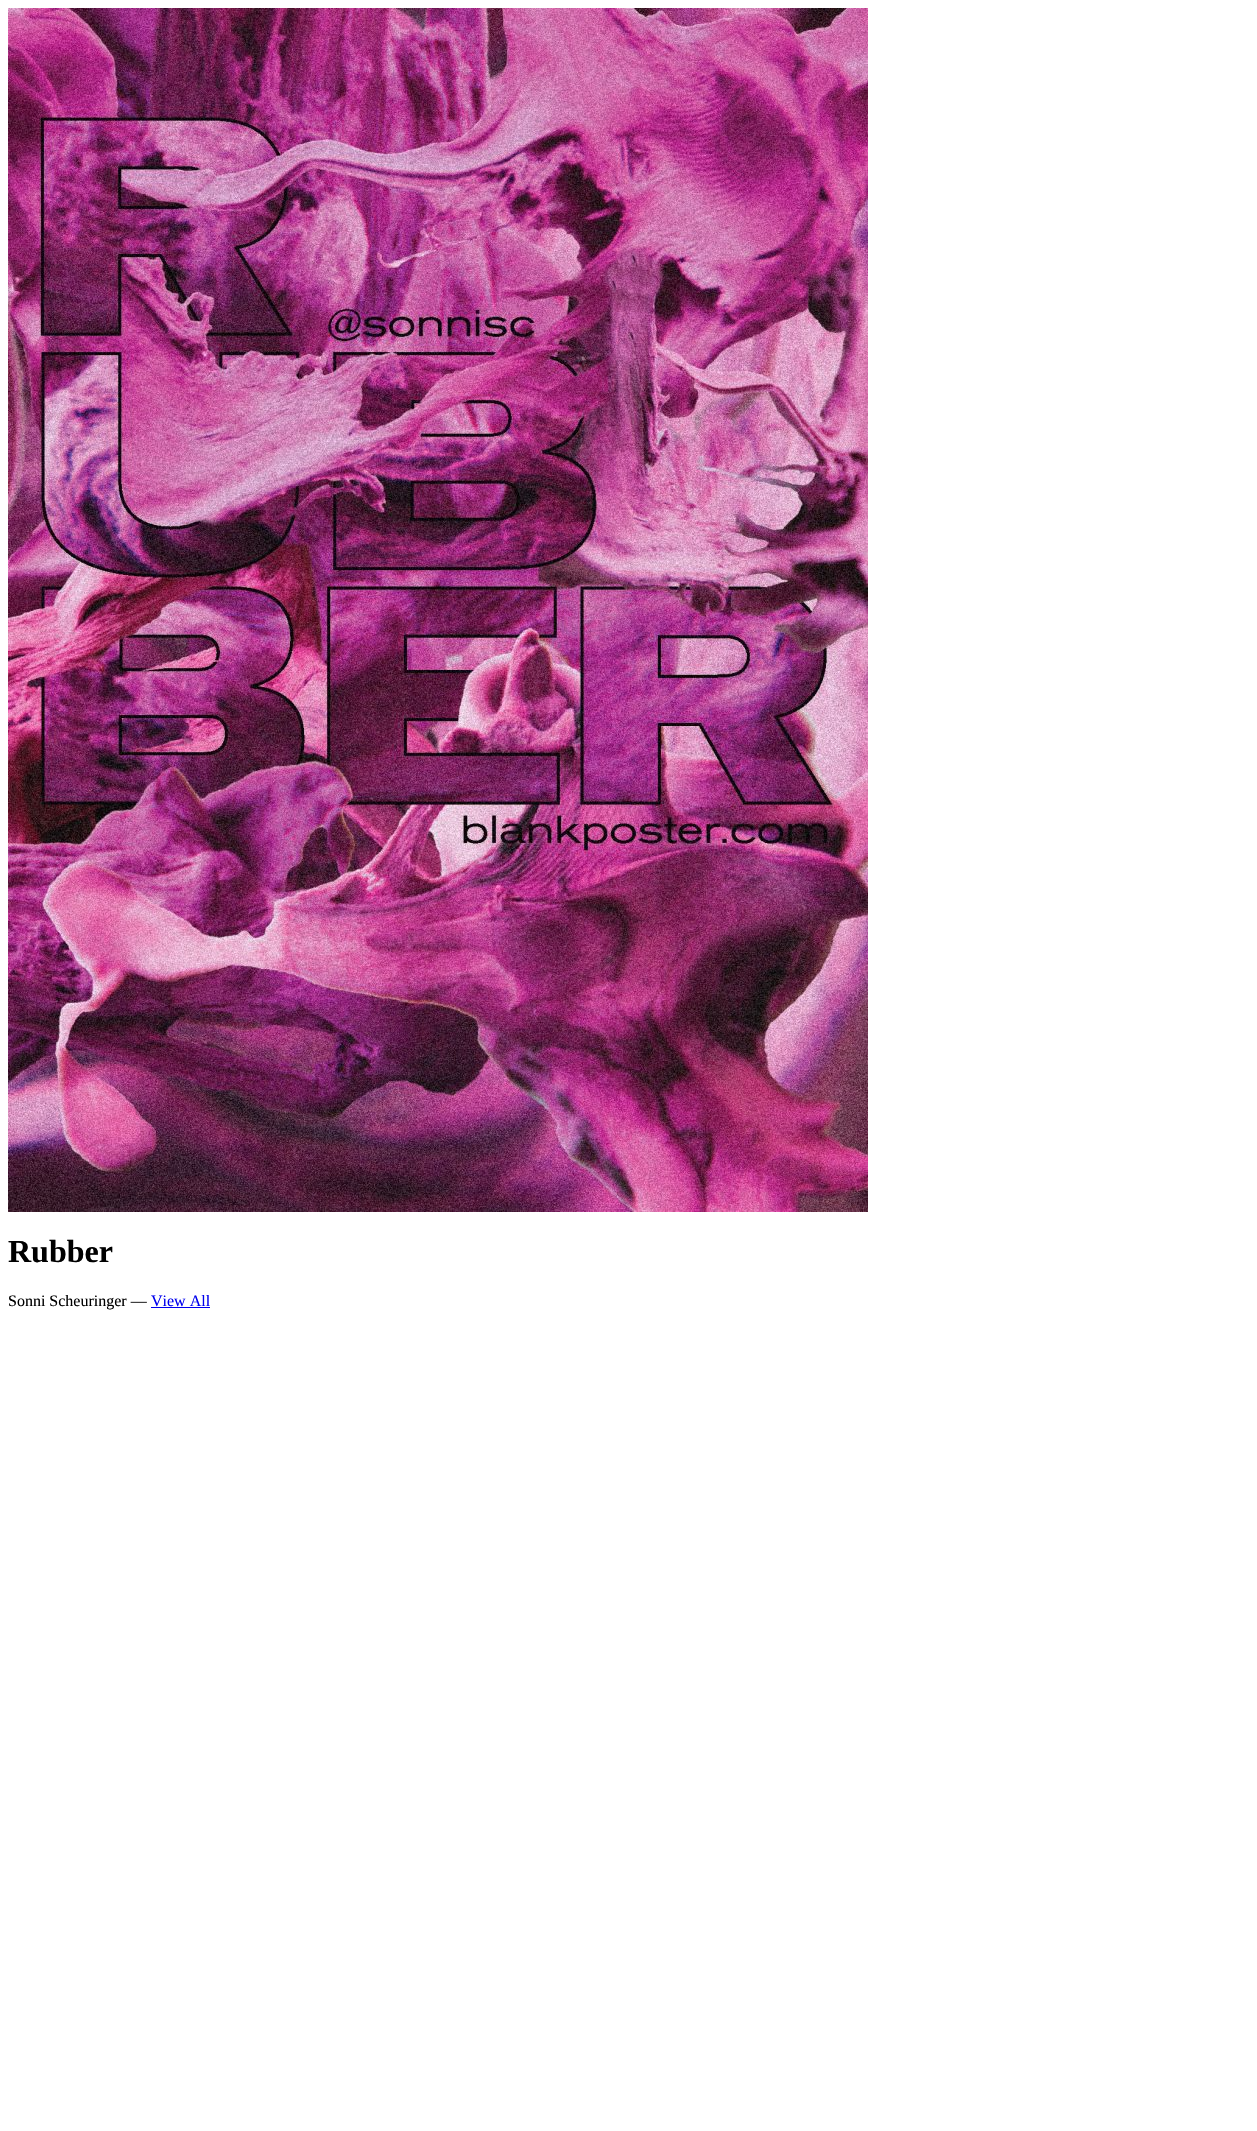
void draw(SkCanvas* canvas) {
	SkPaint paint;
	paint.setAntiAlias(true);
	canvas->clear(0xffffffff);
	canvas->drawImageRect(SkImages::DeferredFromEncodedData(SkData::MakeFromFileName("img1.png")), SkRect::MakeXYWH(8, 8, 860, 1204), SkSamplingOptions());
	SkFont f1(fontMgr->matchFamilyStyle("Liberation Serif", SkFontStyle::Bold()), 32);
	f1.setSubpixel(true);
	paint.setColor(0xff000000);
	canvas->drawString("Rubber", 8, 1262, f1, paint);
	SkFont f2(fontMgr->matchFamilyStyle("Liberation Serif", SkFontStyle::Normal()), 16);
	f2.setSubpixel(true);
	canvas->drawString("Sonni Scheuringer —", 8, 1306, f2, paint);
	paint.setColor(0xff0000ee);
	canvas->drawString("View All", 151, 1306, f2, paint);
	canvas->drawRect(SkRect::MakeXYWH(151, 1307, 59, 1), paint);
}
